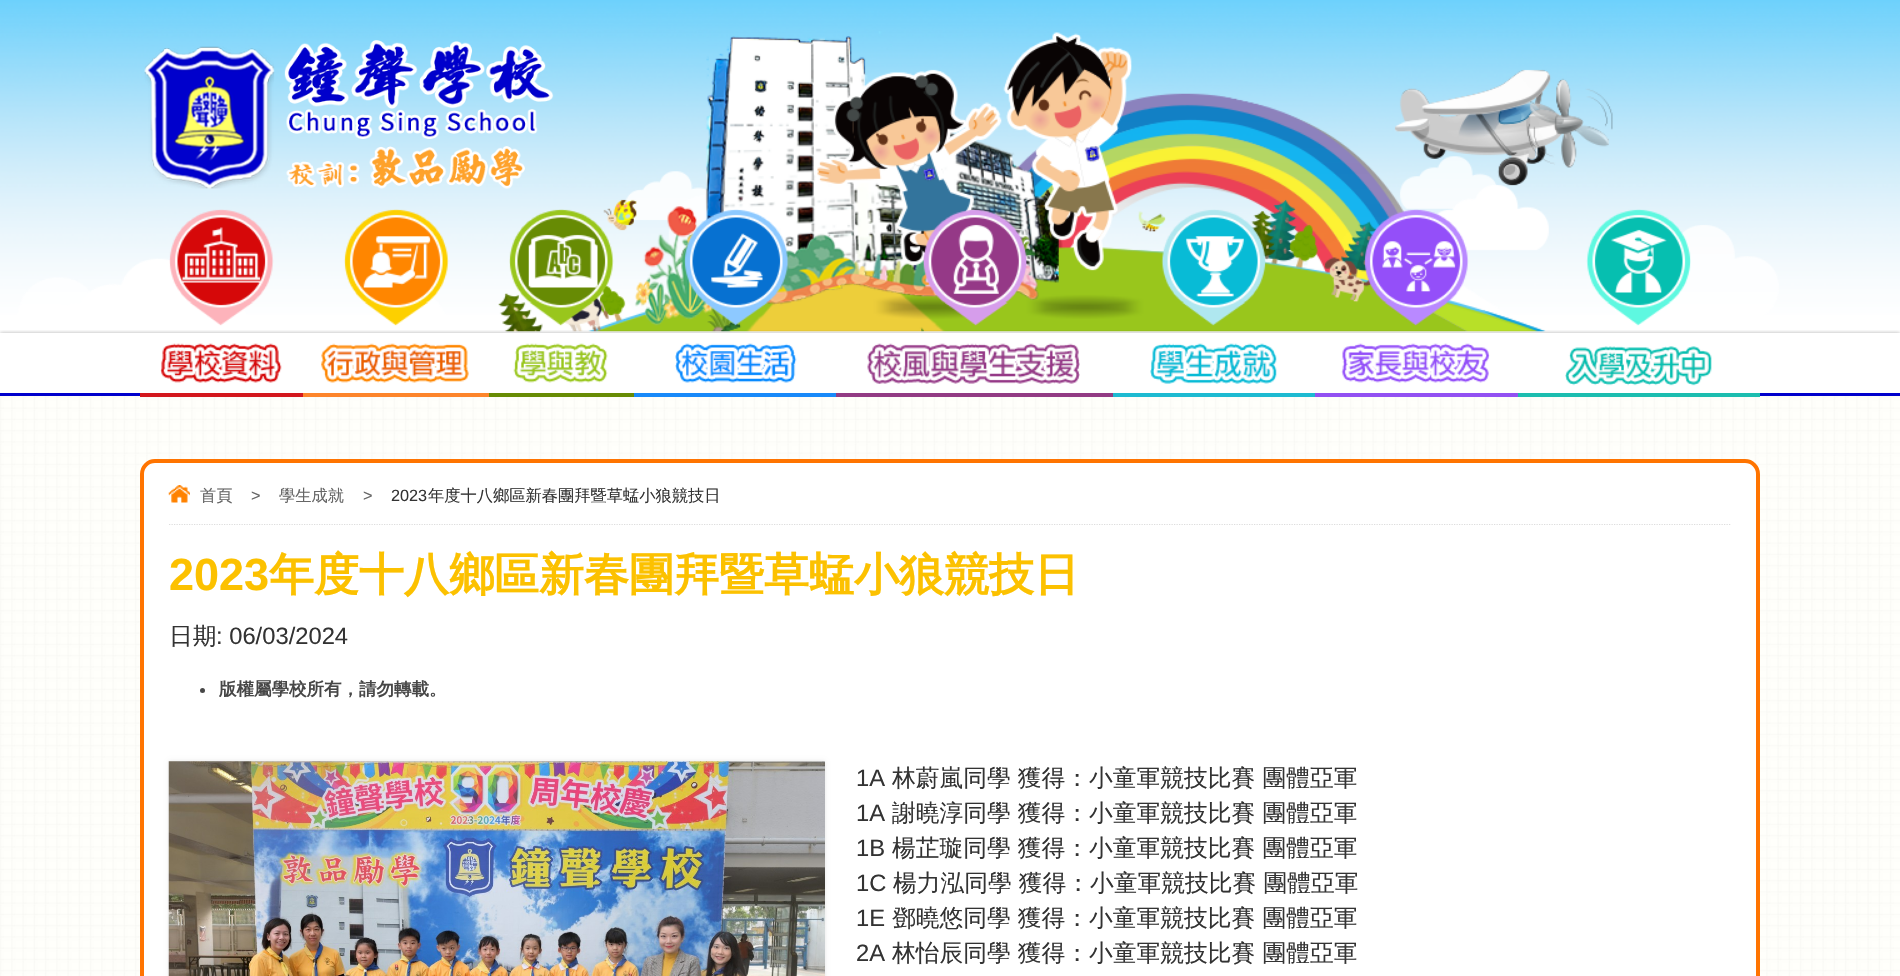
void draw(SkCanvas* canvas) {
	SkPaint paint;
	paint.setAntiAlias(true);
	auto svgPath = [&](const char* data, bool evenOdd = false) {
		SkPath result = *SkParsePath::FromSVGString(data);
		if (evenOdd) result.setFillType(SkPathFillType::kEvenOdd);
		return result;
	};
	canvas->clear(0xffffffff);
	canvas->drawImageRect(SkImages::DeferredFromEncodedData(SkData::MakeFromFileName("img1.png")), SkRect::MakeXYWH(0, 0, 1900, 332), SkSamplingOptions());
	canvas->drawImageRect(SkImages::DeferredFromEncodedData(SkData::MakeFromFileName("img2.png")), SkRect::MakeXYWH(144, 40, 410, 149), SkSamplingOptions());
	canvas->save();
	canvas->clipRect(SkRect::MakeXYWH(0, 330, 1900, 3));
	paint.setColor(0x4d000000);
	paint.setMaskFilter(SkMaskFilter::MakeBlur(kNormal_SkBlurStyle, 2));
	canvas->drawRect(SkRect::MakeXYWH(0, 333, 1900, 63), paint);
	paint.setMaskFilter(nullptr);
	canvas->restore();
	paint.setColor(0xff0000cc);
	canvas->drawRect(SkRect::MakeXYWH(0, 393, 1900, 3), paint);
	paint.setColor(0xfffffded);
	canvas->drawRect(SkRect::MakeXYWH(0, 396, 1900, 580), paint);
	canvas->drawImageRect(SkImages::DeferredFromEncodedData(SkData::MakeFromFileName("img19.png")), SkRect::MakeXYWH(0, 396, 1900, 580), SkSamplingOptions());
	paint.setColor(0xffd3171d);
	canvas->drawRect(SkRect::MakeXYWH(140, 393, 163, 4), paint);
	canvas->drawImageRect(SkImages::DeferredFromEncodedData(SkData::MakeFromFileName("img3.png")), SkRect::MakeXYWH(169, 209, 105, 117), SkSamplingOptions());
	canvas->drawImageRect(SkImages::DeferredFromEncodedData(SkData::MakeFromFileName("img4.png")), SkRect::MakeXYWH(160, 343, 122, 40), SkSamplingOptions());
	paint.setColor(0xfffd852b);
	canvas->drawRect(SkRect::MakeXYWH(303, 393, 186, 4), paint);
	canvas->drawImageRect(SkImages::DeferredFromEncodedData(SkData::MakeFromFileName("img5.png")), SkRect::MakeXYWH(344, 209, 105, 117), SkSamplingOptions());
	canvas->drawImageRect(SkImages::DeferredFromEncodedData(SkData::MakeFromFileName("img6.png")), SkRect::MakeXYWH(321, 343, 148, 40), SkSamplingOptions());
	paint.setColor(0xff678b04);
	canvas->drawRect(SkRect::MakeXYWH(489, 393, 145, 4), paint);
	canvas->drawImageRect(SkImages::DeferredFromEncodedData(SkData::MakeFromFileName("img7.png")), SkRect::MakeXYWH(509, 209, 105, 117), SkSamplingOptions());
	canvas->drawImageRect(SkImages::DeferredFromEncodedData(SkData::MakeFromFileName("img8.png")), SkRect::MakeXYWH(513, 343, 95, 40), SkSamplingOptions());
	paint.setColor(0xff1889f9);
	canvas->drawRect(SkRect::MakeXYWH(634, 393, 202, 4), paint);
	canvas->drawImageRect(SkImages::DeferredFromEncodedData(SkData::MakeFromFileName("img9.png")), SkRect::MakeXYWH(684, 209, 105, 117), SkSamplingOptions());
	canvas->drawImageRect(SkImages::DeferredFromEncodedData(SkData::MakeFromFileName("img10.png")), SkRect::MakeXYWH(675, 343, 122, 40), SkSamplingOptions());
	paint.setColor(0xff923b84);
	canvas->drawRect(SkRect::MakeXYWH(836, 393, 277, 4), paint);
	canvas->drawImageRect(SkImages::DeferredFromEncodedData(SkData::MakeFromFileName("img11.png")), SkRect::MakeXYWH(923, 209, 105, 117), SkSamplingOptions());
	canvas->drawImageRect(SkImages::DeferredFromEncodedData(SkData::MakeFromFileName("img12.png")), SkRect::MakeXYWH(867, 343, 213, 41), SkSamplingOptions());
	paint.setColor(0xff1dbad1);
	canvas->drawRect(SkRect::MakeXYWH(1113, 393, 202, 4), paint);
	canvas->drawImageRect(SkImages::DeferredFromEncodedData(SkData::MakeFromFileName("img13.png")), SkRect::MakeXYWH(1161, 209, 105, 117), SkSamplingOptions());
	canvas->drawImageRect(SkImages::DeferredFromEncodedData(SkData::MakeFromFileName("img14.png")), SkRect::MakeXYWH(1150, 343, 127, 41), SkSamplingOptions());
	paint.setColor(0xff9250f2);
	canvas->drawRect(SkRect::MakeXYWH(1315, 393, 203, 4), paint);
	canvas->drawImageRect(SkImages::DeferredFromEncodedData(SkData::MakeFromFileName("img15.png")), SkRect::MakeXYWH(1364, 209, 105, 117), SkSamplingOptions());
	canvas->drawImageRect(SkImages::DeferredFromEncodedData(SkData::MakeFromFileName("img16.png")), SkRect::MakeXYWH(1341, 343, 149, 40), SkSamplingOptions());
	paint.setColor(0xff1cbdaf);
	canvas->drawRect(SkRect::MakeXYWH(1518, 393, 242, 4), paint);
	canvas->drawImageRect(SkImages::DeferredFromEncodedData(SkData::MakeFromFileName("img17.png")), SkRect::MakeXYWH(1586, 209, 105, 117), SkSamplingOptions());
	canvas->drawImageRect(SkImages::DeferredFromEncodedData(SkData::MakeFromFileName("img18.png")), SkRect::MakeXYWH(1565, 346, 147, 40), SkSamplingOptions());
	paint.setColor(0xffffffff);
	canvas->drawRoundRect(SkRect::MakeXYWH(142, 461, 1616, 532), 13, 13, paint);
	paint.setStroke(true);
	paint.setStrokeWidth(4);
	paint.setColor(0xffff7400);
	canvas->drawRoundRect(SkRect::MakeXYWH(142, 461, 1616, 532), 13, 13, paint);
	paint.setStrokeWidth(1.2);
	paint.setColor(0xffdddddd);
	paint.setPathEffect(SkDashPathEffect::Make({{1.25f, 1.25f}}, 0));
	canvas->drawPath(svgPath("M169 524.5H1731"), paint);
	paint.setPathEffect(nullptr);
	canvas->drawImageRect(SkImages::DeferredFromEncodedData(SkData::MakeFromFileName("img20.png")), SkRect::MakeXYWH(168, 485, 22, 18), SkSamplingOptions());
	SkFont f1(fontMgr->matchFamilyStyle("WenQuanYi Zen Hei", SkFontStyle(500, SkFontStyle::kNormal_Width, SkFontStyle::kUpright_Slant)), 16.25);
	f1.setSubpixel(true);
	paint.setStroke(false);
	paint.setColor(0xff666666);
	canvas->drawString("首頁", 200, 501, f1, paint);
	SkFont f2(fontMgr->matchFamilyStyle("Liberation Sans", SkFontStyle::Normal()), 16.25);
	f2.setSubpixel(true);
	canvas->drawString(">", 251, 501, f2, paint);
	canvas->drawString("學生成就", 279, 501, f1, paint);
	canvas->drawString(">", 363, 501, f2, paint);
	paint.setColor(0xff333333);
	canvas->drawString("2023", 391, 501, f2, paint);
	canvas->drawString("年度十八鄉區新春團拜暨草蜢小狼競技日", 428, 501, f1, paint);
	SkFont f3(fontMgr->matchFamilyStyle("Liberation Sans", SkFontStyle::Bold()), 45);
	f3.setSubpixel(true);
	paint.setColor(0xfffcc100);
	canvas->drawString("2023", 169, 590, f3, paint);
	SkFont f4(fontMgr->matchFamilyStyle("WenQuanYi Zen Hei", SkFontStyle::Bold()), 45);
	f4.setSubpixel(true);
	canvas->drawString("年度十八鄉區新春團拜暨草蜢小狼競技日", 269, 590, f4, paint);
	SkFont f5(fontMgr->matchFamilyStyle("WenQuanYi Zen Hei", SkFontStyle(500, SkFontStyle::kNormal_Width, SkFontStyle::kUpright_Slant)), 23.75);
	f5.setSubpixel(true);
	paint.setColor(0xff333333);
	canvas->drawString("日期", 169, 644, f5, paint);
	SkFont f6(fontMgr->matchFamilyStyle("Liberation Sans", SkFontStyle::Normal()), 23.75);
	f6.setSubpixel(true);
	canvas->drawString(": 06/03/2024", 216, 644, f6, paint);
	paint.setColor(0xff474747);
	canvas->drawCircle(202.5, 690.5, 2.5, paint);
	SkFont f7(fontMgr->matchFamilyStyle("WenQuanYi Zen Hei", SkFontStyle::Bold()), 17.5);
	f7.setSubpixel(true);
	canvas->drawString("版權屬學校所有，請勿轉載。", 219, 695, f7, paint);
	paint.setColor(0x1a000000);
	paint.setMaskFilter(SkMaskFilter::MakeBlur(kNormal_SkBlurStyle, 2));
	canvas->drawRect(SkRect::MakeXYWH(169, 761, 656, 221), paint);
	paint.setMaskFilter(nullptr);
	canvas->drawImageRect(SkImages::DeferredFromEncodedData(SkData::MakeFromFileName("img21.png")), SkRect::MakeXYWH(168, 761, 657, 215), SkSamplingOptions());
	paint.setColor(0xff333333);
	canvas->drawString("1A", 856, 786, f6, paint);
	canvas->drawString("林蔚嵐同學 獲得：小童軍競技比賽 團體亞軍", 892, 786, f5, paint);
	canvas->drawString("1A", 856, 821, f6, paint);
	canvas->drawString("謝曉淳同學 獲得：小童軍競技比賽 團體亞軍", 892, 821, f5, paint);
	canvas->drawString("1B", 856, 856, f6, paint);
	canvas->drawString("楊芷璇同學 獲得：小童軍競技比賽 團體亞軍", 892, 856, f5, paint);
	canvas->drawString("1C", 856, 891, f6, paint);
	canvas->drawString("楊力泓同學 獲得：小童軍競技比賽 團體亞軍", 893, 891, f5, paint);
	canvas->drawString("1E", 856, 926, f6, paint);
	canvas->drawString("鄧曉悠同學 獲得：小童軍競技比賽 團體亞軍", 892, 926, f5, paint);
	canvas->drawString("2A", 856, 961, f6, paint);
	canvas->drawString("林怡辰同學 獲得：小童軍競技比賽 團體亞軍", 892, 961, f5, paint);
}
